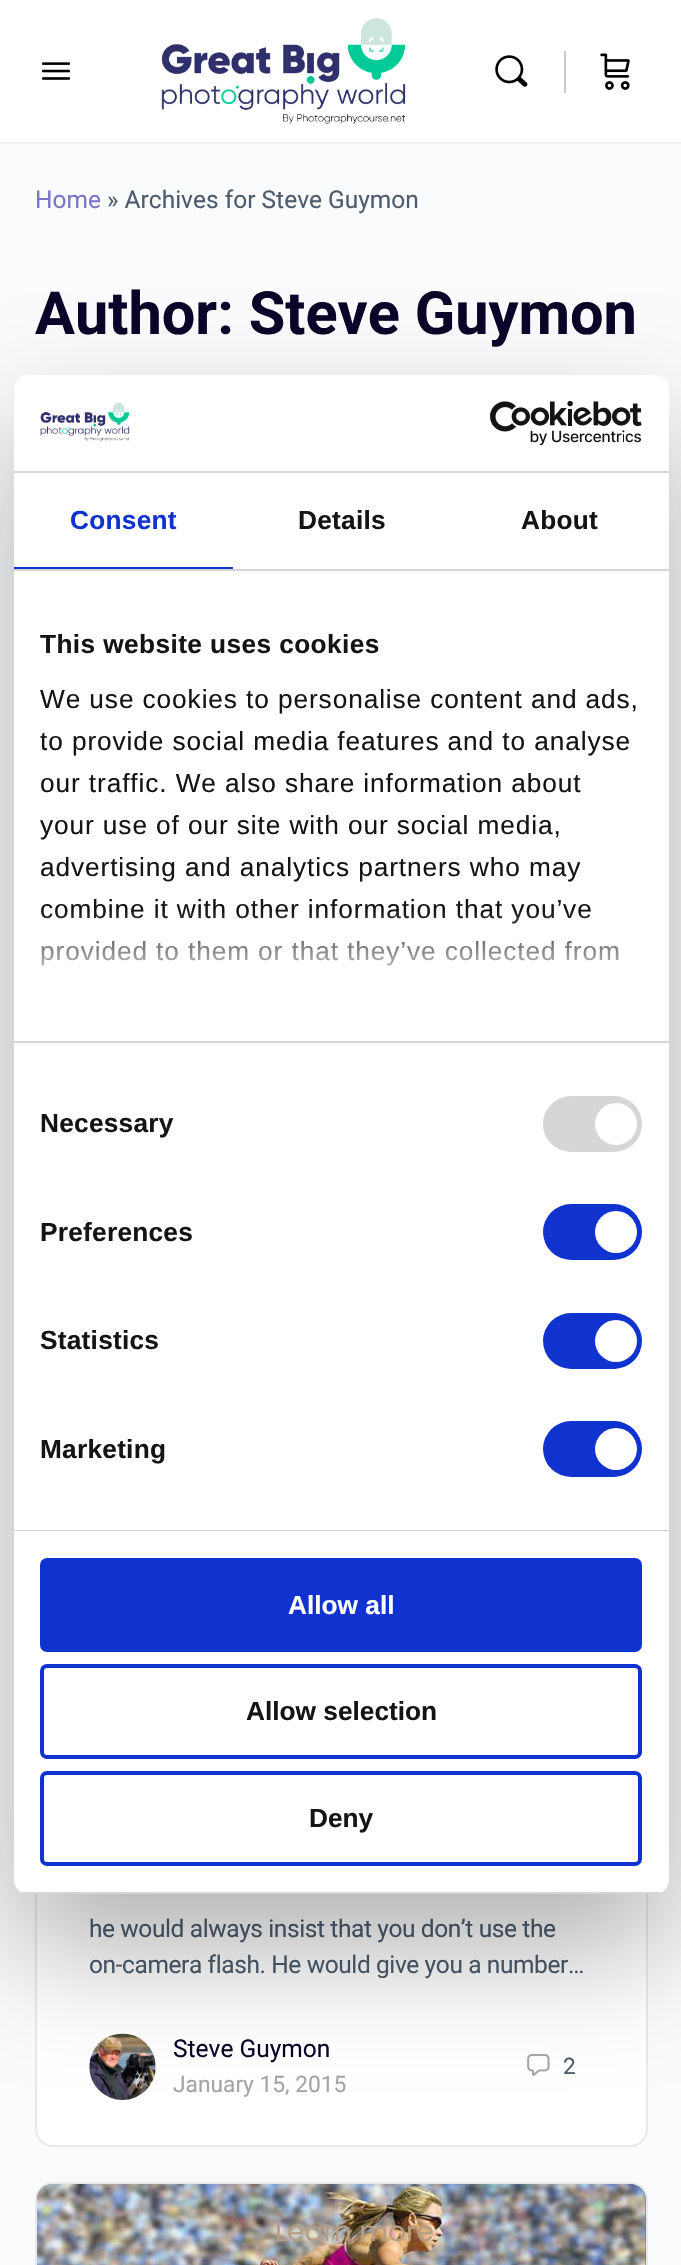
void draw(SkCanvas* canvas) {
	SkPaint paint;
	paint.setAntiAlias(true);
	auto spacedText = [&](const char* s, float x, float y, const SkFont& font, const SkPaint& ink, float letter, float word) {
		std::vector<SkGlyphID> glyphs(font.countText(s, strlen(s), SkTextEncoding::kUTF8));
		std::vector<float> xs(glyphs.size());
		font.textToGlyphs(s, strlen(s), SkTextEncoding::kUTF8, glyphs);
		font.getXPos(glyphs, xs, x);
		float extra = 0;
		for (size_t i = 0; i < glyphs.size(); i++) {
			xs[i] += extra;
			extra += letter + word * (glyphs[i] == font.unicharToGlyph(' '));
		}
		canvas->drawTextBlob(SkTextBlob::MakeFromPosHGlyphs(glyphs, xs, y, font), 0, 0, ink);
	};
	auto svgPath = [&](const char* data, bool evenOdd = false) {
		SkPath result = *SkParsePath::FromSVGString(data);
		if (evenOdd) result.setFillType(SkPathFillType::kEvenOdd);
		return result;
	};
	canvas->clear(0xfffafbfd);
	paint.setColor(0x2641476c);
	paint.setMaskFilter(SkMaskFilter::MakeBlur(kNormal_SkBlurStyle, 1));
	canvas->drawRect(SkRect::MakeXYWH(0, 0, 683, 142), paint);
	paint.setMaskFilter(nullptr);
	paint.setColor(0x0d8b8d9d);
	canvas->drawPath(svgPath("M0 142V144H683V2H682V142Z"), paint);
	paint.setColor(0xffffffff);
	canvas->drawRect(SkRect::MakeXYWH(0, 0, 681, 142), paint);
	canvas->drawImageRect(SkImages::DeferredFromEncodedData(SkData::MakeFromFileName("img1.png")), SkRect::MakeXYWH(42, 62, 28, 18), SkSamplingOptions());
	canvas->drawImageRect(SkImages::DeferredFromEncodedData(SkData::MakeFromFileName("img2.png")), SkRect::MakeXYWH(161, 18, 245, 106), SkSamplingOptions());
	canvas->drawImageRect(SkImages::DeferredFromEncodedData(SkData::MakeFromFileName("img3.png")), SkRect::MakeXYWH(495, 55, 33, 32), SkSamplingOptions());
	paint.setColor(0xffcccccc);
	canvas->drawRect(SkRect::MakeXYWH(564, 51, 2, 42), paint);
	canvas->drawImageRect(SkImages::DeferredFromEncodedData(SkData::MakeFromFileName("img4.png")), SkRect::MakeXYWH(600, 53, 30, 37), SkSamplingOptions());
	SkFont f1(fontMgr->matchFamilyStyle("Roboto", SkFontStyle::Normal()), 24.5);
	f1.setSubpixel(true);
	paint.setColor(0xff7d74c8);
	canvas->drawString("Home", 35, 208, f1, paint);
	paint.setColor(0xff4d5c6d);
	canvas->drawString("» Archives for Steve Guymon", 107, 208, f1, paint);
	SkFont f2(fontMgr->matchFamilyStyle("Roboto", SkFontStyle::Bold()), 59.5);
	f2.setSubpixel(true);
	paint.setColor(0xff0a0528);
	canvas->drawString("Author: Steve Guymon", 35, 334, f2, paint);
	paint.setColor(0xffffffff);
	canvas->drawRoundRect(SkRect::MakeXYWH(36, 1510, 611, 636), 17, 17, paint);
	paint.setStroke(true);
	paint.setStrokeWidth(2);
	paint.setColor(0xffe7e9ec);
	canvas->drawRoundRect(SkRect::MakeXYWH(36, 1510, 611, 636), 17, 17, paint);
	paint.setStroke(false);
	paint.setColor(0xff4d5c6d);
	spacedText("he would always insist that you don’t use the", 89, 1937, f1, paint, -0.4, 0);
	spacedText("on-camera flash. He would give you a number…", 89, 1973, f1, paint, -0.4, 0);
	canvas->drawImageRect(SkImages::DeferredFromEncodedData(SkData::MakeFromFileName("img5.png")), SkRect::MakeXYWH(89, 2033, 67, 67), SkSamplingOptions());
	paint.setColor(0xff0a0528);
	canvas->drawString("Steve Guymon", 173, 2057, f1, paint);
	SkFont f3(fontMgr->matchFamilyStyle("Roboto", SkFontStyle::Normal()), 22.75);
	f3.setSubpixel(true);
	paint.setColor(0xffa3a5a9);
	canvas->drawString("January 15, 2015", 173, 2092, f3, paint);
	canvas->drawImageRect(SkImages::DeferredFromEncodedData(SkData::MakeFromFileName("img6.png")), SkRect::MakeXYWH(527, 2054, 23, 22), SkSamplingOptions());
	paint.setColor(0xff4d5c6d);
	canvas->drawString("2", 563, 2074, f3, paint);
	paint.setStroke(true);
	paint.setColor(0xffe7e9ec);
	canvas->drawRoundRect(SkRect::MakeXYWH(36, 2183, 611, 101), 17, 17, paint);
	paint.setStroke(false);
	paint.setColor(0xff607387);
	canvas->drawPath(svgPath("M53 2184H630C639 2184 646 2191 646 2200V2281H37V2200C37 2191 44 2184 53 2184Z"), paint);
	canvas->drawImageRect(SkImages::DeferredFromEncodedData(SkData::MakeFromFileName("img7.png")), SkRect::MakeXYWH(37, 2184, 609, 81), SkSamplingOptions());
	paint.setColor(0x4d000000);
	paint.setMaskFilter(SkMaskFilter::MakeBlur(kNormal_SkBlurStyle, 59.5));
	canvas->drawRoundRect(SkRect::MakeXYWH(14, 431, 655, 1519), 14, 14, paint);
	paint.setMaskFilter(nullptr);
	paint.setColor(0xffffffff);
	canvas->drawRoundRect(SkRect::MakeXYWH(14, 375, 655, 1519), 14, 14, paint);
	paint.setColor(0xffd6d6d6);
	canvas->drawRect(SkRect::MakeXYWH(14, 471, 655, 2), paint);
	canvas->drawImageRect(SkImages::DeferredFromEncodedData(SkData::MakeFromFileName("img8.png")), SkRect::MakeXYWH(40, 402, 90, 39), SkSamplingOptions());
	canvas->drawImageRect(SkImages::DeferredFromEncodedData(SkData::MakeFromFileName("img9.png")), SkRect::MakeXYWH(490, 401, 152, 44), SkSamplingOptions());
	canvas->drawRect(SkRect::MakeXYWH(14, 569, 655, 2), paint);
	paint.setColor(0xff1032cf);
	canvas->drawRect(SkRect::MakeXYWH(14, 567, 219, 2), paint);
	SkFont f4(fontMgr->matchFamilyStyle("Liberation Sans", SkFontStyle::Bold()), 26.25);
	f4.setSubpixel(true);
	spacedText("Consent", 70, 529, f4, paint, 0.25, 0);
	paint.setColor(0xff141414);
	spacedText("Details", 298, 529, f4, paint, 0.25, 0);
	spacedText("About", 521, 529, f4, paint, 0.25, 0);
	paint.setColor(0xffd6d6d6);
	canvas->drawRect(SkRect::MakeXYWH(14, 1041, 655, 2), paint);
	paint.setColor(0xff141414);
	spacedText("This website uses cookies", 40, 653, f4, paint, 0.4, 0);
	SkFont f5(fontMgr->matchFamilyStyle("Liberation Sans", SkFontStyle::Normal()), 26.25);
	f5.setSubpixel(true);
	spacedText("We use cookies to personalise content and ads,", 40, 708, f5, paint, 0.9, 0);
	spacedText("to provide social media features and to analyse", 40, 750, f5, paint, 0.9, 0);
	spacedText("our traffic. We also share information about", 40, 792, f5, paint, 0.9, 0);
	spacedText("your use of our site with our social media,", 40, 834, f5, paint, 0.9, 0);
	spacedText("advertising and analytics partners who may", 40, 876, f5, paint, 0.9, 0);
	spacedText("combine it with other information that you’ve", 40, 918, f5, paint, 0.9, 0);
	spacedText("provided to them or that they’ve collected from", 40, 960, f5, paint, 0.9, 0);
	{
		const SkColor colors[] = {0xffffffff, 0xccffffff, 0x00ffffff};
		const float stops[] = {0, 0.5, 1};
		const SkPoint ends[] = {{330, 1041}, {330, 910}};
		paint.setShader(SkGradientShader::MakeLinear(ends, colors, stops, 3, SkTileMode::kClamp));
		paint.setAlpha(255);
	}
	canvas->drawRect(SkRect::MakeXYWH(41, 912, 577, 54), paint);
	paint.setShader(nullptr);
	paint.setColor(0xffd6d6d6);
	canvas->drawRect(SkRect::MakeXYWH(14, 1530, 655, 1), paint);
	paint.setColor(0xff141414);
	spacedText("Necessary", 40, 1132, f4, paint, 0.25, 0);
	paint.setColor(0xffd6d6d6);
	canvas->drawRoundRect(SkRect::MakeXYWH(543, 1096, 99, 56), 28, 28, paint);
	paint.setColor(0xffffffff);
	canvas->drawCircle(616, 1124, 21, paint);
	paint.setColor(0xff141414);
	spacedText("Preferences", 40, 1241, f4, paint, 0.25, 0);
	paint.setColor(0xff1032cf);
	canvas->drawRoundRect(SkRect::MakeXYWH(543, 1204, 99, 56), 28, 28, paint);
	paint.setColor(0xffffffff);
	canvas->drawCircle(616, 1232, 21, paint);
	paint.setColor(0xff141414);
	spacedText("Statistics", 40, 1349, f4, paint, 0.25, 0);
	paint.setColor(0xff1032cf);
	canvas->drawRoundRect(SkRect::MakeXYWH(543, 1313, 99, 56), 28, 28, paint);
	paint.setColor(0xffffffff);
	canvas->drawCircle(616, 1341, 21, paint);
	paint.setColor(0xff141414);
	spacedText("Marketing", 40, 1458, f4, paint, 0.25, 0);
	paint.setColor(0xff1032cf);
	canvas->drawRoundRect(SkRect::MakeXYWH(543, 1421, 99, 56), 28, 28, paint);
	paint.setColor(0xffffffff);
	canvas->drawCircle(616, 1449, 21, paint);
	canvas->save();
	canvas->clipPath(svgPath("M28 375H655C662.5 375 669 381.5 669 389V1880C669 1887.5 662.5 1894 655 1894H28C20.5 1894 14 1887.5 14 1880V389C14 381.5 20.5 375 28 375Z"), true);
	paint.setColor(0xffd6d6d6);
	canvas->drawRect(SkRect::MakeXYWH(14, 1892, 655, 2), paint);
	canvas->restore();
	paint.setColor(0xff1032cf);
	canvas->drawRoundRect(SkRect::MakeXYWH(42, 1560, 598, 90), 5, 5, paint);
	paint.setStroke(true);
	paint.setStrokeWidth(4);
	canvas->drawRoundRect(SkRect::MakeXYWH(42, 1560, 598, 90), 5, 5, paint);
	paint.setStroke(false);
	paint.setColor(0xffffffff);
	canvas->drawString("Allow all", 288, 1614, f4, paint);
	paint.setStroke(true);
	paint.setColor(0xff1032cf);
	canvas->drawRoundRect(SkRect::MakeXYWH(42, 1666, 598, 91), 5, 5, paint);
	paint.setStroke(false);
	paint.setColor(0xff141414);
	canvas->drawString("Allow selection", 246, 1720, f4, paint);
	paint.setStroke(true);
	paint.setColor(0xff1032cf);
	canvas->drawRoundRect(SkRect::MakeXYWH(42, 1773, 598, 91), 5, 5, paint);
	paint.setStroke(false);
	paint.setColor(0xff141414);
	canvas->drawString("Deny", 309, 1827, f4, paint);
	SkFont f6(fontMgr->matchFamilyStyle("Poppins", SkFontStyle::Normal()), 28);
	f6.setSubpixel(true);
	paint.setColor(0xffb49e87);
	canvas->drawString("Learn more", 275, 2241, f6, paint);
}
